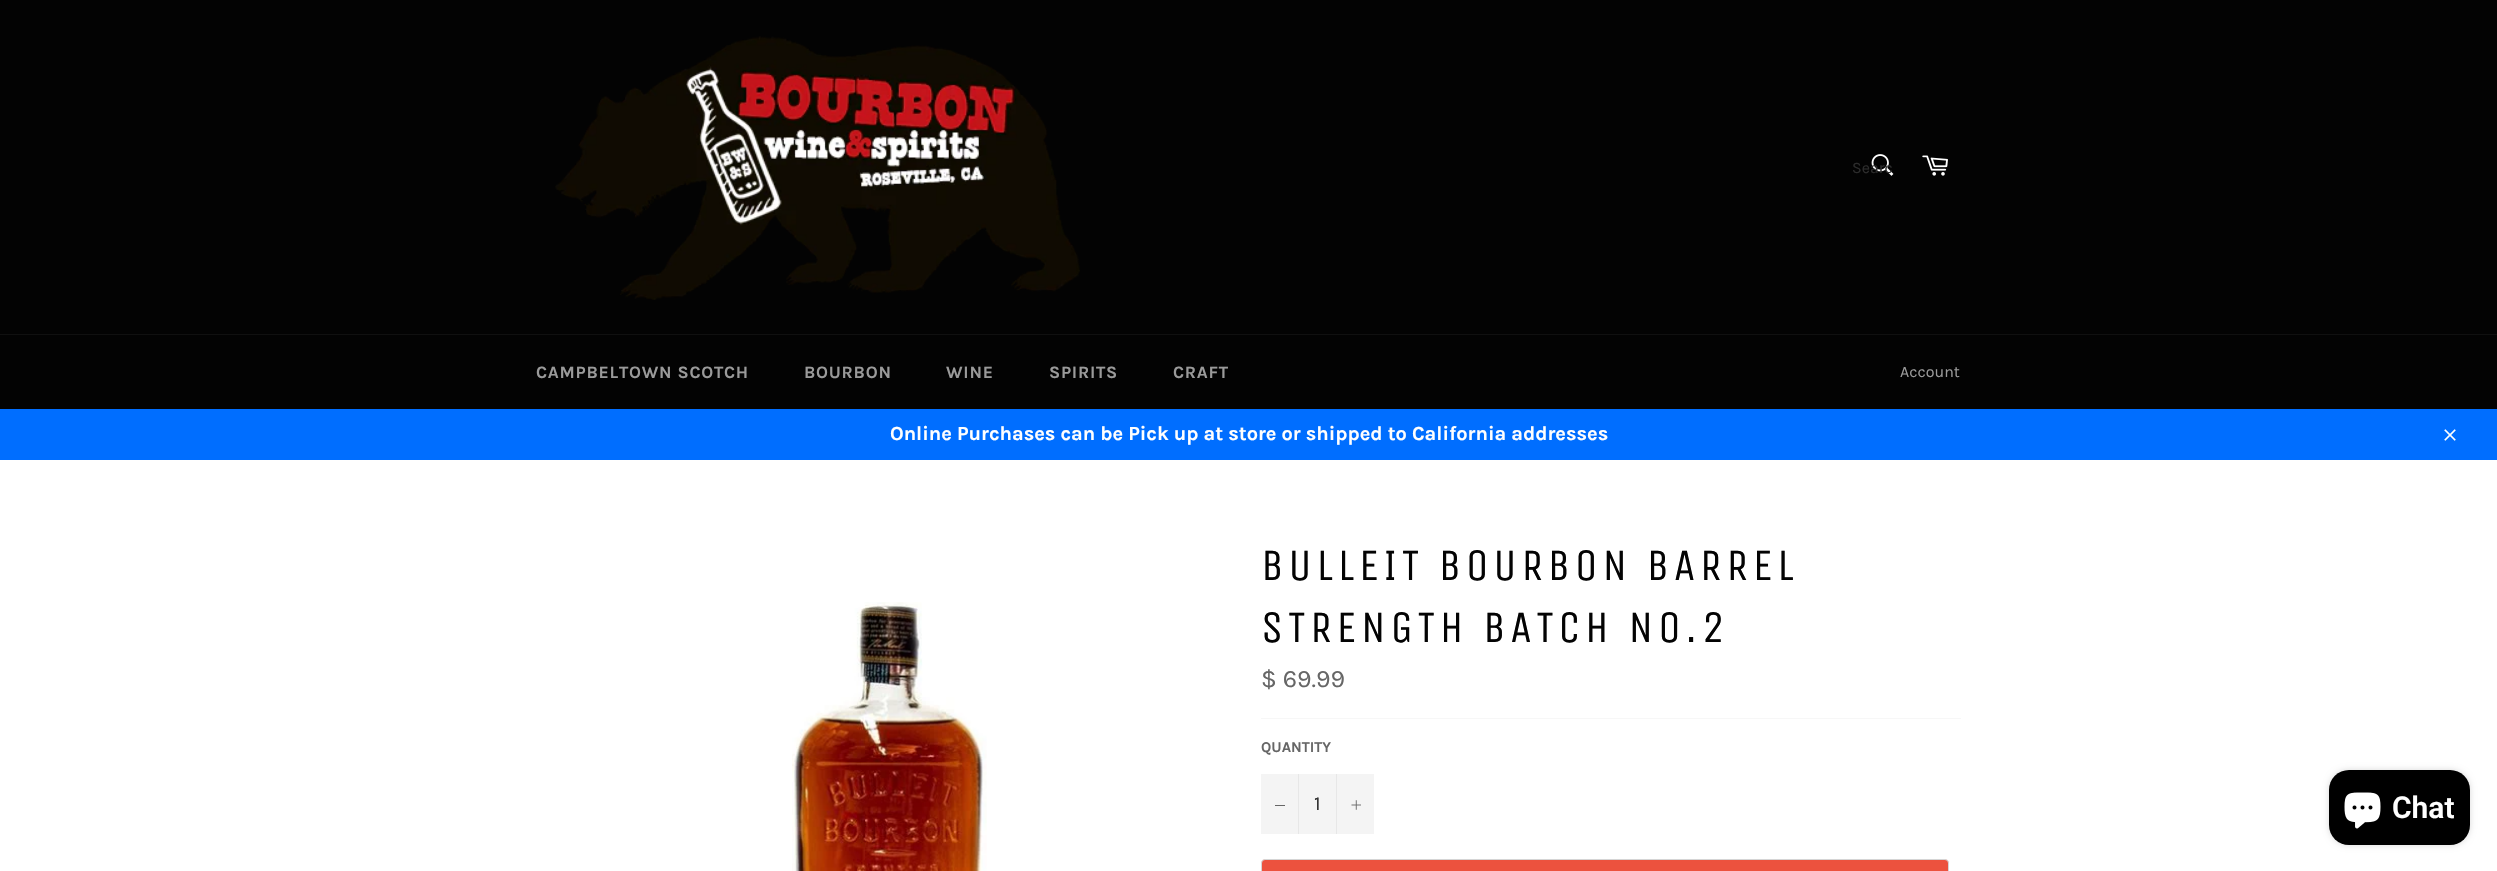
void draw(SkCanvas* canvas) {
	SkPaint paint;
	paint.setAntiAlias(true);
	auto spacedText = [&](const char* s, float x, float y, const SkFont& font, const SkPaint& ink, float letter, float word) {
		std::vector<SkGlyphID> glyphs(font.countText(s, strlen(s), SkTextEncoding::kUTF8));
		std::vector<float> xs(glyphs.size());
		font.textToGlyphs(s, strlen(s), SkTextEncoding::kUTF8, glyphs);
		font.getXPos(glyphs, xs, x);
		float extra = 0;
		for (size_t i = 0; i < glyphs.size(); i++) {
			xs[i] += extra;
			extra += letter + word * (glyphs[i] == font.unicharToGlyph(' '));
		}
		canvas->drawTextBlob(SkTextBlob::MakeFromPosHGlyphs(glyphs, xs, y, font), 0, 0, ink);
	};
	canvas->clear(0xff030303);
	canvas->drawImageRect(SkImages::DeferredFromEncodedData(SkData::MakeFromFileName("img1.png")), SkRect::MakeXYWH(555, 36, 525, 264), SkSamplingOptions());
	canvas->drawImageRect(SkImages::DeferredFromEncodedData(SkData::MakeFromFileName("img2.png")), SkRect::MakeXYWH(1871, 154, 23, 22), SkSamplingOptions());
	SkFont f1(fontMgr->matchFamilyStyle("Karla", SkFontStyle::Normal()), 16);
	f1.setSubpixel(true);
	paint.setColor(0xff2c2c2c);
	canvas->drawString("Searc", 1852, 173, f1, paint);
	canvas->drawImageRect(SkImages::DeferredFromEncodedData(SkData::MakeFromFileName("img3.png")), SkRect::MakeXYWH(1922, 155, 26, 21), SkSamplingOptions());
	paint.setColor(0xff101010);
	canvas->drawRect(SkRect::MakeXYWH(0, 334, 2497, 1), paint);
	SkFont f2(fontMgr->matchFamilyStyle("Karla", SkFontStyle::Bold()), 17.5);
	f2.setSubpixel(true);
	paint.setColor(0xff9a9a9a);
	spacedText("CAMPBELTOWN SCOTCH", 536, 378, f2, paint, 0.75, 0);
	spacedText("BOURBON", 804, 378, f2, paint, 0.75, 0);
	spacedText("WINE", 946, 378, f2, paint, 0.75, 0);
	spacedText("SPIRITS", 1049, 378, f2, paint, 0.75, 0);
	spacedText("CRAFT", 1173, 378, f2, paint, 0.75, 0);
	canvas->drawString("Account", 1900, 377, f1, paint);
	paint.setColor(0xff006eff);
	canvas->drawRect(SkRect::MakeXYWH(0, 409, 2497, 51), paint);
	SkFont f3(fontMgr->matchFamilyStyle("Karla", SkFontStyle::Bold()), 20);
	f3.setSubpixel(true);
	paint.setColor(0xffffffff);
	canvas->drawString("Online Purchases can be Pick up at store or shipped to California addresses", 890, 440, f3, paint);
	canvas->drawImageRect(SkImages::DeferredFromEncodedData(SkData::MakeFromFileName("img4.png")), SkRect::MakeXYWH(2444, 429, 12, 12), SkSamplingOptions());
	canvas->drawRect(SkRect::MakeXYWH(0, 460, 2497, 411), paint);
	canvas->drawImageRect(SkImages::DeferredFromEncodedData(SkData::MakeFromFileName("img5.png")), SkRect::MakeXYWH(792, 602, 195, 269), SkSamplingOptions());
	SkFont f4(fontMgr->matchFamilyStyle("Unica One", SkFontStyle::Normal()), 45);
	f4.setSubpixel(true);
	paint.setColor(0xff030303);
	spacedText("BULLEIT BOURBON BARREL", 1261, 580, f4, paint, 4.5, 0);
	spacedText("STRENGTH BATCH NO.2", 1261, 642, f4, paint, 4.5, 0);
	SkFont f5(fontMgr->matchFamilyStyle("Karla", SkFontStyle::Normal()), 25);
	f5.setSubpixel(true);
	paint.setColor(0xff666666);
	canvas->drawString("$ 69.99", 1261, 687, f5, paint);
	paint.setColor(0xfff7f7f7);
	canvas->drawRect(SkRect::MakeXYWH(1261, 718, 700, 1), paint);
	SkFont f6(fontMgr->matchFamilyStyle("Karla", SkFontStyle::Bold()), 15);
	f6.setSubpixel(true);
	paint.setColor(0xff666666);
	canvas->drawString("QUANTITY", 1261, 752, f6, paint);
	paint.setColor(0xfff4f4f4);
	canvas->drawRect(SkRect::MakeXYWH(1261, 774, 113, 60), paint);
	paint.setColor(0xffe7e7e7);
	canvas->drawRect(SkRect::MakeXYWH(1298, 774, 1, 60), paint);
	paint.setColor(0xff666666);
	canvas->drawRect(SkRect::MakeXYWH(1275, 805, 10, 1), paint);
	SkFont f7(fontMgr->matchFamilyStyle("Karla", SkFontStyle::Normal()), 20);
	f7.setSubpixel(true);
	paint.setColor(0xff333333);
	canvas->drawString("1", 1314, 810, f7, paint);
	paint.setColor(0xffe7e7e7);
	canvas->drawRect(SkRect::MakeXYWH(1336, 774, 1, 60), paint);
	canvas->drawImageRect(SkImages::DeferredFromEncodedData(SkData::MakeFromFileName("img6.png")), SkRect::MakeXYWH(1351, 800, 10, 10), SkSamplingOptions());
	paint.setColor(0xffec523e);
	canvas->drawRoundRect(SkRect::MakeXYWH(1261.5, 859.5, 687, 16), 3.5, 3.5, paint);
	paint.setStroke(true);
	paint.setStrokeWidth(1);
	paint.setColor(0xffd5d5d5);
	canvas->drawRoundRect(SkRect::MakeXYWH(1261.5, 859.5, 687, 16), 3.5, 3.5, paint);
	paint.setStroke(false);
	paint.setColor(0x26000000);
	paint.setMaskFilter(SkMaskFilter::MakeBlur(kNormal_SkBlurStyle, 3));
	canvas->drawRoundRect(SkRect::MakeXYWH(2329, 770, 141, 75), 20, 20, paint);
	paint.setMaskFilter(nullptr);
	paint.setColor(0xff000000);
	canvas->drawRoundRect(SkRect::MakeXYWH(2329, 770, 141, 75), 20, 20, paint);
	canvas->drawImageRect(SkImages::DeferredFromEncodedData(SkData::MakeFromFileName("img7.png")), SkRect::MakeXYWH(2344, 792, 37, 37), SkSamplingOptions());
	SkFont f8(fontMgr->matchFamilyStyle("Roboto", SkFontStyle(600, SkFontStyle::kNormal_Width, SkFontStyle::kUpright_Slant)), 30);
	f8.setSubpixel(true);
	paint.setColor(0xffffffff);
	canvas->drawString("Chat", 2392, 818, f8, paint);
}
